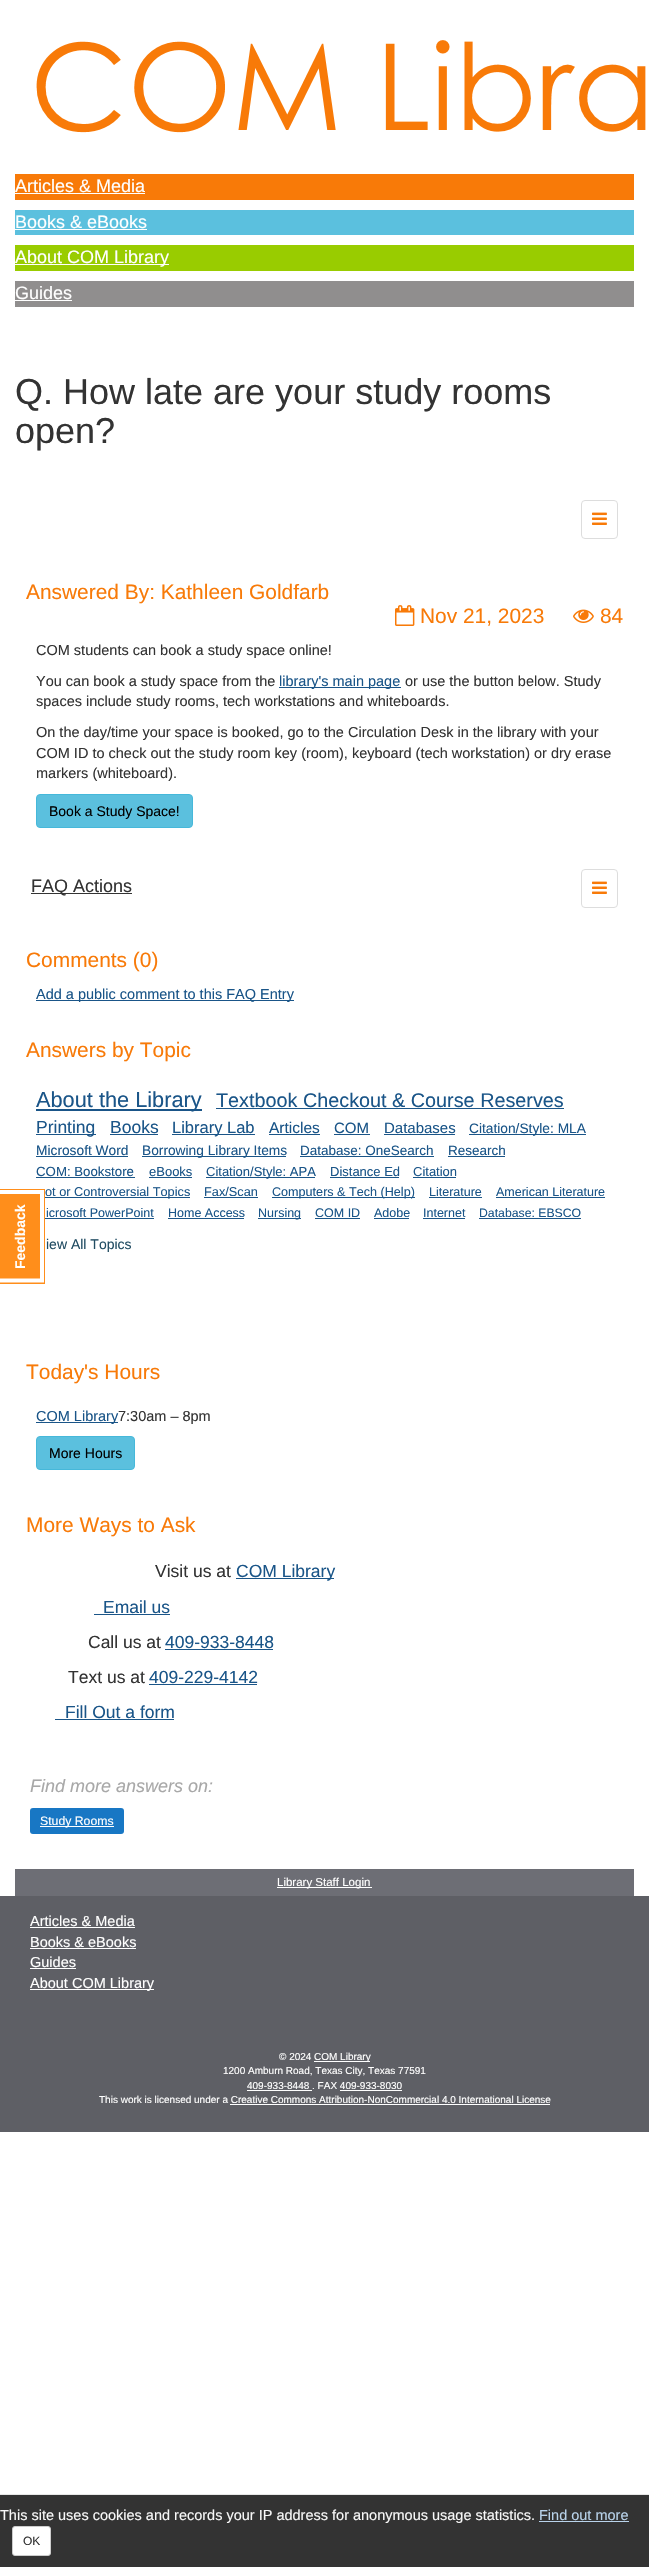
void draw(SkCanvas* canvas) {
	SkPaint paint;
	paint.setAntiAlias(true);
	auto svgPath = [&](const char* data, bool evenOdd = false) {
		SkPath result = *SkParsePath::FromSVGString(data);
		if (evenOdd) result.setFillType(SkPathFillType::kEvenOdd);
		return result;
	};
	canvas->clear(0xffffffff);
	canvas->drawImageRect(SkImages::DeferredFromEncodedData(SkData::MakeFromFileName("img1.png")), SkRect::MakeXYWH(36, 40, 610, 93), SkSamplingOptions());
	paint.setColor(0xfff87a08);
	canvas->drawRect(SkRect::MakeXYWH(15, 174, 619, 26), paint);
	SkFont f1(fontMgr->matchFamilyStyle("Liberation Sans", SkFontStyle::Normal()), 18);
	f1.setSubpixel(true);
	paint.setColor(0xffffffff);
	canvas->drawString("Articles & Media", 15, 192, f1, paint);
	canvas->drawRect(SkRect::MakeXYWH(15, 193, 130, 1), paint);
	paint.setColor(0xff5bc0de);
	canvas->drawRect(SkRect::MakeXYWH(15, 210, 619, 25), paint);
	paint.setColor(0xffffffff);
	canvas->drawString("Books & eBooks", 15, 228, f1, paint);
	canvas->drawRect(SkRect::MakeXYWH(15, 229, 132, 1), paint);
	paint.setColor(0xff99cc00);
	canvas->drawRect(SkRect::MakeXYWH(15, 245, 619, 26), paint);
	paint.setColor(0xffffffff);
	canvas->drawRect(SkRect::MakeXYWH(15, 264, 154, 1), paint);
	canvas->drawString("About COM Library", 15, 263, f1, paint);
	paint.setColor(0xff908e8e);
	canvas->drawRect(SkRect::MakeXYWH(15, 281, 619, 26), paint);
	paint.setColor(0xffffffff);
	canvas->drawString("Guides", 15, 299, f1, paint);
	canvas->drawRect(SkRect::MakeXYWH(15, 300, 57, 1), paint);
	SkFont f2(fontMgr->matchFamilyStyle("Liberation Sans", SkFontStyle::Normal()), 36);
	f2.setSubpixel(true);
	paint.setColor(0xff333333);
	canvas->drawString("Q. How late are your study rooms", 15, 404, f2, paint);
	canvas->drawString("open?", 15, 443, f2, paint);
	paint.setStroke(true);
	paint.setStrokeWidth(1);
	paint.setColor(0xffdddddd);
	canvas->drawRoundRect(SkRect::MakeXYWH(581.5, 500.5, 36, 38), 3.5, 3.5, paint);
	canvas->drawImageRect(SkImages::DeferredFromEncodedData(SkData::MakeFromFileName("img2.png")), SkRect::MakeXYWH(592, 512, 15, 13), SkSamplingOptions());
	SkFont f3(fontMgr->matchFamilyStyle("Liberation Sans", SkFontStyle::Normal()), 20.9);
	f3.setSubpixel(true);
	paint.setStroke(false);
	paint.setColor(0xfff87a08);
	canvas->drawString("Answered By: Kathleen Goldfarb", 26, 599, f3, paint);
	canvas->drawImageRect(SkImages::DeferredFromEncodedData(SkData::MakeFromFileName("img3.png")), SkRect::MakeXYWH(395, 605, 20, 21), SkSamplingOptions());
	canvas->drawString("Nov 21, 2023", 420, 623, f3, paint);
	canvas->drawImageRect(SkImages::DeferredFromEncodedData(SkData::MakeFromFileName("img4.png")), SkRect::MakeXYWH(573, 609, 21, 14), SkSamplingOptions());
	canvas->drawString("84", 600, 623, f3, paint);
	SkFont f4(fontMgr->matchFamilyStyle("Liberation Sans", SkFontStyle::Normal()), 14.5);
	f4.setSubpixel(true);
	paint.setColor(0xff333333);
	canvas->drawString("COM students can book a study space online!", 36, 655, f4, paint);
	canvas->drawString("You can book a study space from the", 36, 686, f4, paint);
	paint.setColor(0xff1a5588);
	canvas->drawRect(SkRect::MakeXYWH(279, 687, 122, 1), paint);
	canvas->drawString("library's main page", 279, 686, f4, paint);
	paint.setColor(0xff333333);
	canvas->drawString("or use the button below. Study", 405, 686, f4, paint);
	canvas->drawString("spaces include study rooms, tech workstations and whiteboards.", 36, 706, f4, paint);
	canvas->drawString("On the day/time your space is booked, go to the Circulation Desk in the library with your", 36, 737, f4, paint);
	canvas->drawString("COM ID to check out the study room key (room), keyboard (tech workstation) or dry erase", 36, 758, f4, paint);
	canvas->drawString("markers (whiteboard).", 36, 778, f4, paint);
	paint.setColor(0xff5bc0de);
	canvas->drawRoundRect(SkRect::MakeXYWH(36.5, 794.5, 156, 33), 3.5, 3.5, paint);
	paint.setStroke(true);
	paint.setColor(0xff46b8da);
	canvas->drawRoundRect(SkRect::MakeXYWH(36.5, 794.5, 156, 33), 3.5, 3.5, paint);
	SkFont f5(fontMgr->matchFamilyStyle("Liberation Sans", SkFontStyle::Normal()), 14);
	f5.setSubpixel(true);
	paint.setStroke(false);
	paint.setColor(0xff000000);
	canvas->drawString("Book a Study Space!", 49, 816, f5, paint);
	paint.setColor(0xff333333);
	canvas->drawRect(SkRect::MakeXYWH(31, 893, 101, 1), paint);
	canvas->drawString("FAQ Actions", 31, 892, f1, paint);
	paint.setStroke(true);
	paint.setColor(0xffdddddd);
	canvas->drawRoundRect(SkRect::MakeXYWH(581.5, 869.5, 36, 38), 3.5, 3.5, paint);
	canvas->drawImageRect(SkImages::DeferredFromEncodedData(SkData::MakeFromFileName("img2.png")), SkRect::MakeXYWH(592, 881, 15, 13), SkSamplingOptions());
	paint.setStroke(false);
	paint.setColor(0xfff87a08);
	canvas->drawString("Comments (0)", 26, 967, f3, paint);
	paint.setColor(0xff1a5588);
	canvas->drawRect(SkRect::MakeXYWH(36, 1000, 258, 1), paint);
	canvas->drawString("Add a public comment to this FAQ Entry", 36, 999, f4, paint);
	paint.setColor(0xfff87a08);
	canvas->drawString("Answers by Topic", 26, 1057, f3, paint);
	paint.setColor(0xff1a5588);
	canvas->drawRect(SkRect::MakeXYWH(36, 1109, 166, 2), paint);
	SkFont f6(fontMgr->matchFamilyStyle("Liberation Sans", SkFontStyle::Normal()), 21.75);
	f6.setSubpixel(true);
	canvas->drawString("About the Library", 36, 1107, f6, paint);
	SkFont f7(fontMgr->matchFamilyStyle("Liberation Sans", SkFontStyle::Normal()), 19.8);
	f7.setSubpixel(true);
	canvas->drawString("Textbook Checkout & Course Reserves", 216, 1107, f7, paint);
	canvas->drawRect(SkRect::MakeXYWH(216, 1108, 348, 1), paint);
	canvas->drawRect(SkRect::MakeXYWH(36, 1134, 60, 1), paint);
	SkFont f8(fontMgr->matchFamilyStyle("Liberation Sans", SkFontStyle::Normal()), 17.5);
	f8.setSubpixel(true);
	canvas->drawString("Printing", 36, 1133, f8, paint);
	canvas->drawString("Books", 110, 1133, f8, paint);
	canvas->drawRect(SkRect::MakeXYWH(110, 1134, 48, 1), paint);
	canvas->drawRect(SkRect::MakeXYWH(172, 1134, 83, 1), paint);
	SkFont f9(fontMgr->matchFamilyStyle("Liberation Sans", SkFontStyle::Normal()), 16.5);
	f9.setSubpixel(true);
	canvas->drawString("Library Lab", 172, 1133, f9, paint);
	SkFont f10(fontMgr->matchFamilyStyle("Liberation Sans", SkFontStyle::Normal()), 15.5);
	f10.setSubpixel(true);
	canvas->drawString("Articles", 269, 1133, f10, paint);
	canvas->drawRect(SkRect::MakeXYWH(269, 1134, 51, 1), paint);
	SkFont f11(fontMgr->matchFamilyStyle("Liberation Sans", SkFontStyle::Normal()), 15);
	f11.setSubpixel(true);
	canvas->drawString("COM", 334, 1133, f11, paint);
	canvas->drawRect(SkRect::MakeXYWH(334, 1134, 36, 1), paint);
	canvas->drawString("Databases", 384, 1133, f11, paint);
	canvas->drawRect(SkRect::MakeXYWH(384, 1134, 71, 1), paint);
	canvas->drawRect(SkRect::MakeXYWH(469, 1134, 117, 1), paint);
	SkFont f12(fontMgr->matchFamilyStyle("Liberation Sans", SkFontStyle::Normal()), 13.75);
	f12.setSubpixel(true);
	canvas->drawString("Citation/Style: MLA", 469, 1133, f12, paint);
	canvas->drawString("Microsoft Word", 36, 1155, f12, paint);
	canvas->drawRect(SkRect::MakeXYWH(36, 1156, 92, 1), paint);
	canvas->drawRect(SkRect::MakeXYWH(142, 1156, 144, 1), paint);
	canvas->drawString("Borrowing Library Items", 142, 1155, f12, paint);
	SkFont f13(fontMgr->matchFamilyStyle("Liberation Sans", SkFontStyle::Normal()), 13.5);
	f13.setSubpixel(true);
	canvas->drawString("Database: OneSearch", 300, 1155, f13, paint);
	canvas->drawRect(SkRect::MakeXYWH(300, 1156, 134, 1), paint);
	canvas->drawString("Research", 448, 1155, f13, paint);
	canvas->drawRect(SkRect::MakeXYWH(448, 1156, 57, 1), paint);
	SkFont f14(fontMgr->matchFamilyStyle("Liberation Sans", SkFontStyle::Normal()), 13.25);
	f14.setSubpixel(true);
	canvas->drawString("COM: Bookstore", 36, 1176, f14, paint);
	canvas->drawRect(SkRect::MakeXYWH(36, 1177, 99, 1), paint);
	SkFont f15(fontMgr->matchFamilyStyle("Liberation Sans", SkFontStyle::Normal()), 13);
	f15.setSubpixel(true);
	canvas->drawString("eBooks", 149, 1176, f15, paint);
	canvas->drawRect(SkRect::MakeXYWH(149, 1177, 43, 1), paint);
	canvas->drawRect(SkRect::MakeXYWH(206, 1177, 109, 1), paint);
	canvas->drawString("Citation/Style: APA", 206, 1176, f15, paint);
	canvas->drawString("Distance Ed", 330, 1176, f15, paint);
	canvas->drawRect(SkRect::MakeXYWH(330, 1177, 69, 1), paint);
	canvas->drawString("Citation", 413, 1176, f15, paint);
	canvas->drawRect(SkRect::MakeXYWH(413, 1177, 43, 1), paint);
	canvas->drawRect(SkRect::MakeXYWH(45, 1197, 145, 1), paint);
	SkFont f16(fontMgr->matchFamilyStyle("Liberation Sans", SkFontStyle::Normal()), 12.75);
	f16.setSubpixel(true);
	canvas->drawString("ot or Controversial Topics", 45, 1196, f16, paint);
	canvas->drawString("Fax/Scan", 204, 1196, f16, paint);
	canvas->drawRect(SkRect::MakeXYWH(204, 1197, 54, 1), paint);
	canvas->drawRect(SkRect::MakeXYWH(272, 1197, 143, 1), paint);
	SkFont f17(fontMgr->matchFamilyStyle("Liberation Sans", SkFontStyle::Normal()), 12.6);
	f17.setSubpixel(true);
	canvas->drawString("Computers & Tech (Help)", 272, 1196, f17, paint);
	SkFont f18(fontMgr->matchFamilyStyle("Liberation Sans", SkFontStyle::Normal()), 12.5);
	f18.setSubpixel(true);
	canvas->drawString("Literature", 429, 1196, f18, paint);
	canvas->drawRect(SkRect::MakeXYWH(429, 1197, 53, 1), paint);
	canvas->drawString("American Literature", 496, 1196, f18, paint);
	canvas->drawRect(SkRect::MakeXYWH(496, 1197, 109, 1), paint);
	canvas->drawString("icrosoft PowerPoint", 46, 1217, f18, paint);
	canvas->drawRect(SkRect::MakeXYWH(45, 1218, 109, 1), paint);
	canvas->drawString("Home Access", 168, 1217, f18, paint);
	canvas->drawRect(SkRect::MakeXYWH(168, 1218, 76, 1), paint);
	canvas->drawRect(SkRect::MakeXYWH(258, 1218, 43, 1), paint);
	canvas->drawString("Nursing", 258, 1217, f18, paint);
	canvas->drawString("COM ID", 315, 1217, f18, paint);
	canvas->drawRect(SkRect::MakeXYWH(315, 1218, 45, 1), paint);
	canvas->drawString("Adobe", 374, 1217, f18, paint);
	canvas->drawRect(SkRect::MakeXYWH(374, 1218, 35, 1), paint);
	canvas->drawString("Internet", 423, 1217, f18, paint);
	canvas->drawRect(SkRect::MakeXYWH(423, 1218, 42, 1), paint);
	SkFont f19(fontMgr->matchFamilyStyle("Liberation Sans", SkFontStyle::Normal()), 12.25);
	f19.setSubpixel(true);
	canvas->drawString("Database: EBSCO", 479, 1217, f19, paint);
	canvas->drawRect(SkRect::MakeXYWH(479, 1218, 102, 1), paint);
	paint.setColor(0xff214c62);
	canvas->drawString("iew All Topics", 46, 1249, f5, paint);
	paint.setColor(0xfff87a08);
	canvas->drawString("Today's Hours", 26, 1379, f3, paint);
	paint.setColor(0xff1a5588);
	canvas->drawRect(SkRect::MakeXYWH(36, 1422, 82, 1), paint);
	canvas->drawString("COM Library", 36, 1421, f4, paint);
	paint.setColor(0xff333333);
	canvas->drawString("7:30am – 8pm", 118, 1421, f4, paint);
	paint.setColor(0xff5bc0de);
	canvas->drawRoundRect(SkRect::MakeXYWH(36.5, 1436.5, 98, 33), 3.5, 3.5, paint);
	paint.setStroke(true);
	paint.setColor(0xff46b8da);
	canvas->drawRoundRect(SkRect::MakeXYWH(36.5, 1436.5, 98, 33), 3.5, 3.5, paint);
	paint.setStroke(false);
	paint.setColor(0xff000000);
	canvas->drawString("More Hours", 49, 1458, f5, paint);
	paint.setColor(0xfff87a08);
	canvas->drawString("More Ways to Ask", 26, 1532, f3, paint);
	paint.setColor(0xff333333);
	canvas->drawString("Visit us at", 155, 1577, f8, paint);
	paint.setColor(0xff1a5588);
	canvas->drawRect(SkRect::MakeXYWH(236, 1578, 98, 1), paint);
	canvas->drawString("COM Library", 236, 1577, f8, paint);
	canvas->drawString("Email us", 103, 1613, f8, paint);
	canvas->drawRect(SkRect::MakeXYWH(94, 1614, 76, 1), paint);
	paint.setColor(0xff333333);
	canvas->drawString("Call us at", 88, 1648, f8, paint);
	paint.setColor(0xff1a5588);
	canvas->drawString("409-933-8448", 165, 1648, f8, paint);
	canvas->drawRect(SkRect::MakeXYWH(165, 1649, 108, 1), paint);
	paint.setColor(0xff333333);
	canvas->drawString("Text us at", 68, 1683, f8, paint);
	paint.setColor(0xff1a5588);
	canvas->drawString("409-229-4142", 149, 1683, f8, paint);
	canvas->drawRect(SkRect::MakeXYWH(149, 1684, 108, 1), paint);
	canvas->drawString("Fill Out a form", 65, 1718, f8, paint);
	canvas->drawRect(SkRect::MakeXYWH(55, 1719, 119, 1), paint);
	SkFont f20(fontMgr->matchFamilyStyle("Liberation Sans", SkFontStyle::Italic()), 18);
	f20.setSubpixel(true);
	paint.setColor(0xffa8a8a8);
	canvas->drawString("Find more answers on:", 30, 1792, f20, paint);
	paint.setColor(0xff1877c4);
	canvas->drawRoundRect(SkRect::MakeXYWH(30, 1808, 94, 26), 3, 3, paint);
	paint.setColor(0xffffffff);
	canvas->drawRect(SkRect::MakeXYWH(40, 1826, 74, 1), paint);
	canvas->drawString("Study Rooms", 40, 1825, f19, paint);
	paint.setColor(0xff6d6e75);
	canvas->drawRect(SkRect::MakeXYWH(15, 1869, 619, 27), paint);
	paint.setColor(0xffffffff);
	canvas->drawRect(SkRect::MakeXYWH(277, 1887, 95, 1), paint);
	SkFont f21(fontMgr->matchFamilyStyle("Liberation Sans", SkFontStyle::Normal()), 11.5);
	f21.setSubpixel(true);
	canvas->drawString("Library Staff Login", 277, 1886, f21, paint);
	paint.setColor(0xffff8e1b);
	canvas->drawRect(SkRect::MakeXYWH(0, 1189, 45, 95), paint);
	paint.setStroke(true);
	paint.setStrokeWidth(4);
	paint.setColor(0xffffffff);
	canvas->drawPath(svgPath("M-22 1280.5V1192H42V1280.5Z"), paint);
	SkFont f22(fontMgr->matchFamilyStyle("Liberation Sans", SkFontStyle::Bold()), 14);
	f22.setSubpixel(true);
	paint.setStroke(false);
	canvas->save();
	canvas->rotate(-90, 25, 1269);
	canvas->drawString("Feedback", 25, 1269, f22, paint);
	canvas->restore();
	paint.setColor(0xff5e5f65);
	canvas->drawRect(SkRect::MakeXYWH(0, 1896, 649, 236), paint);
	paint.setColor(0xffffffff);
	canvas->drawString("Articles & Media", 30, 1926, f4, paint);
	canvas->drawRect(SkRect::MakeXYWH(30, 1927, 105, 1), paint);
	canvas->drawString("Books & eBooks", 30, 1947, f4, paint);
	canvas->drawRect(SkRect::MakeXYWH(30, 1948, 106, 1), paint);
	canvas->drawString("Guides", 30, 1967, f4, paint);
	canvas->drawRect(SkRect::MakeXYWH(30, 1968, 46, 1), paint);
	canvas->drawRect(SkRect::MakeXYWH(30, 1989, 124, 1), paint);
	canvas->drawString("About COM Library", 30, 1988, f4, paint);
	SkFont f23(fontMgr->matchFamilyStyle("Liberation Sans", SkFontStyle::Normal()), 10);
	f23.setSubpixel(true);
	canvas->drawString("© 2024", 279, 2060, f23, paint);
	canvas->drawRect(SkRect::MakeXYWH(314, 2061, 56, 1), paint);
	canvas->drawString("COM Library", 314, 2060, f23, paint);
	canvas->drawString("1200 Amburn Road, Texas City, Texas 77591", 223, 2074, f23, paint);
	canvas->drawString("409-933-8448 . FAX 409-933-8030", 247, 2089, f23, paint);
	canvas->drawRect(SkRect::MakeXYWH(247, 2090, 65, 1), paint);
	canvas->drawRect(SkRect::MakeXYWH(340, 2090, 62, 1), paint);
	canvas->drawString("This work is licensed under a Creative Commons Attribution-NonCommercial 4.0 International License", 99, 2103, f23, paint);
	canvas->drawRect(SkRect::MakeXYWH(230, 2104, 320, 1), paint);
	paint.setColor(0xff333333);
	canvas->drawRect(SkRect::MakeXYWH(0, 2495, 649, 72), paint);
	paint.setColor(0xffe7e7e7);
	canvas->drawRect(SkRect::MakeXYWH(0, 2494, 649, 1), paint);
	paint.setColor(0xfff8f8f8);
	canvas->drawString("This site uses cookies and records your IP address for anonymous usage statistics.", 0, 2520, f4, paint);
	paint.setColor(0xffb9d3eb);
	canvas->drawString("Find out more", 539, 2520, f4, paint);
	canvas->drawRect(SkRect::MakeXYWH(539, 2521, 90, 1), paint);
	paint.setColor(0xffffffff);
	canvas->drawRoundRect(SkRect::MakeXYWH(12.5, 2526.5, 38, 29), 2.5, 2.5, paint);
	paint.setStroke(true);
	paint.setStrokeWidth(1);
	paint.setColor(0xffcccccc);
	canvas->drawRoundRect(SkRect::MakeXYWH(12.5, 2526.5, 38, 29), 2.5, 2.5, paint);
	SkFont f24(fontMgr->matchFamilyStyle("Liberation Sans", SkFontStyle::Normal()), 12);
	f24.setSubpixel(true);
	paint.setStroke(false);
	paint.setColor(0xff333333);
	canvas->drawString("OK", 23, 2545, f24, paint);
}
